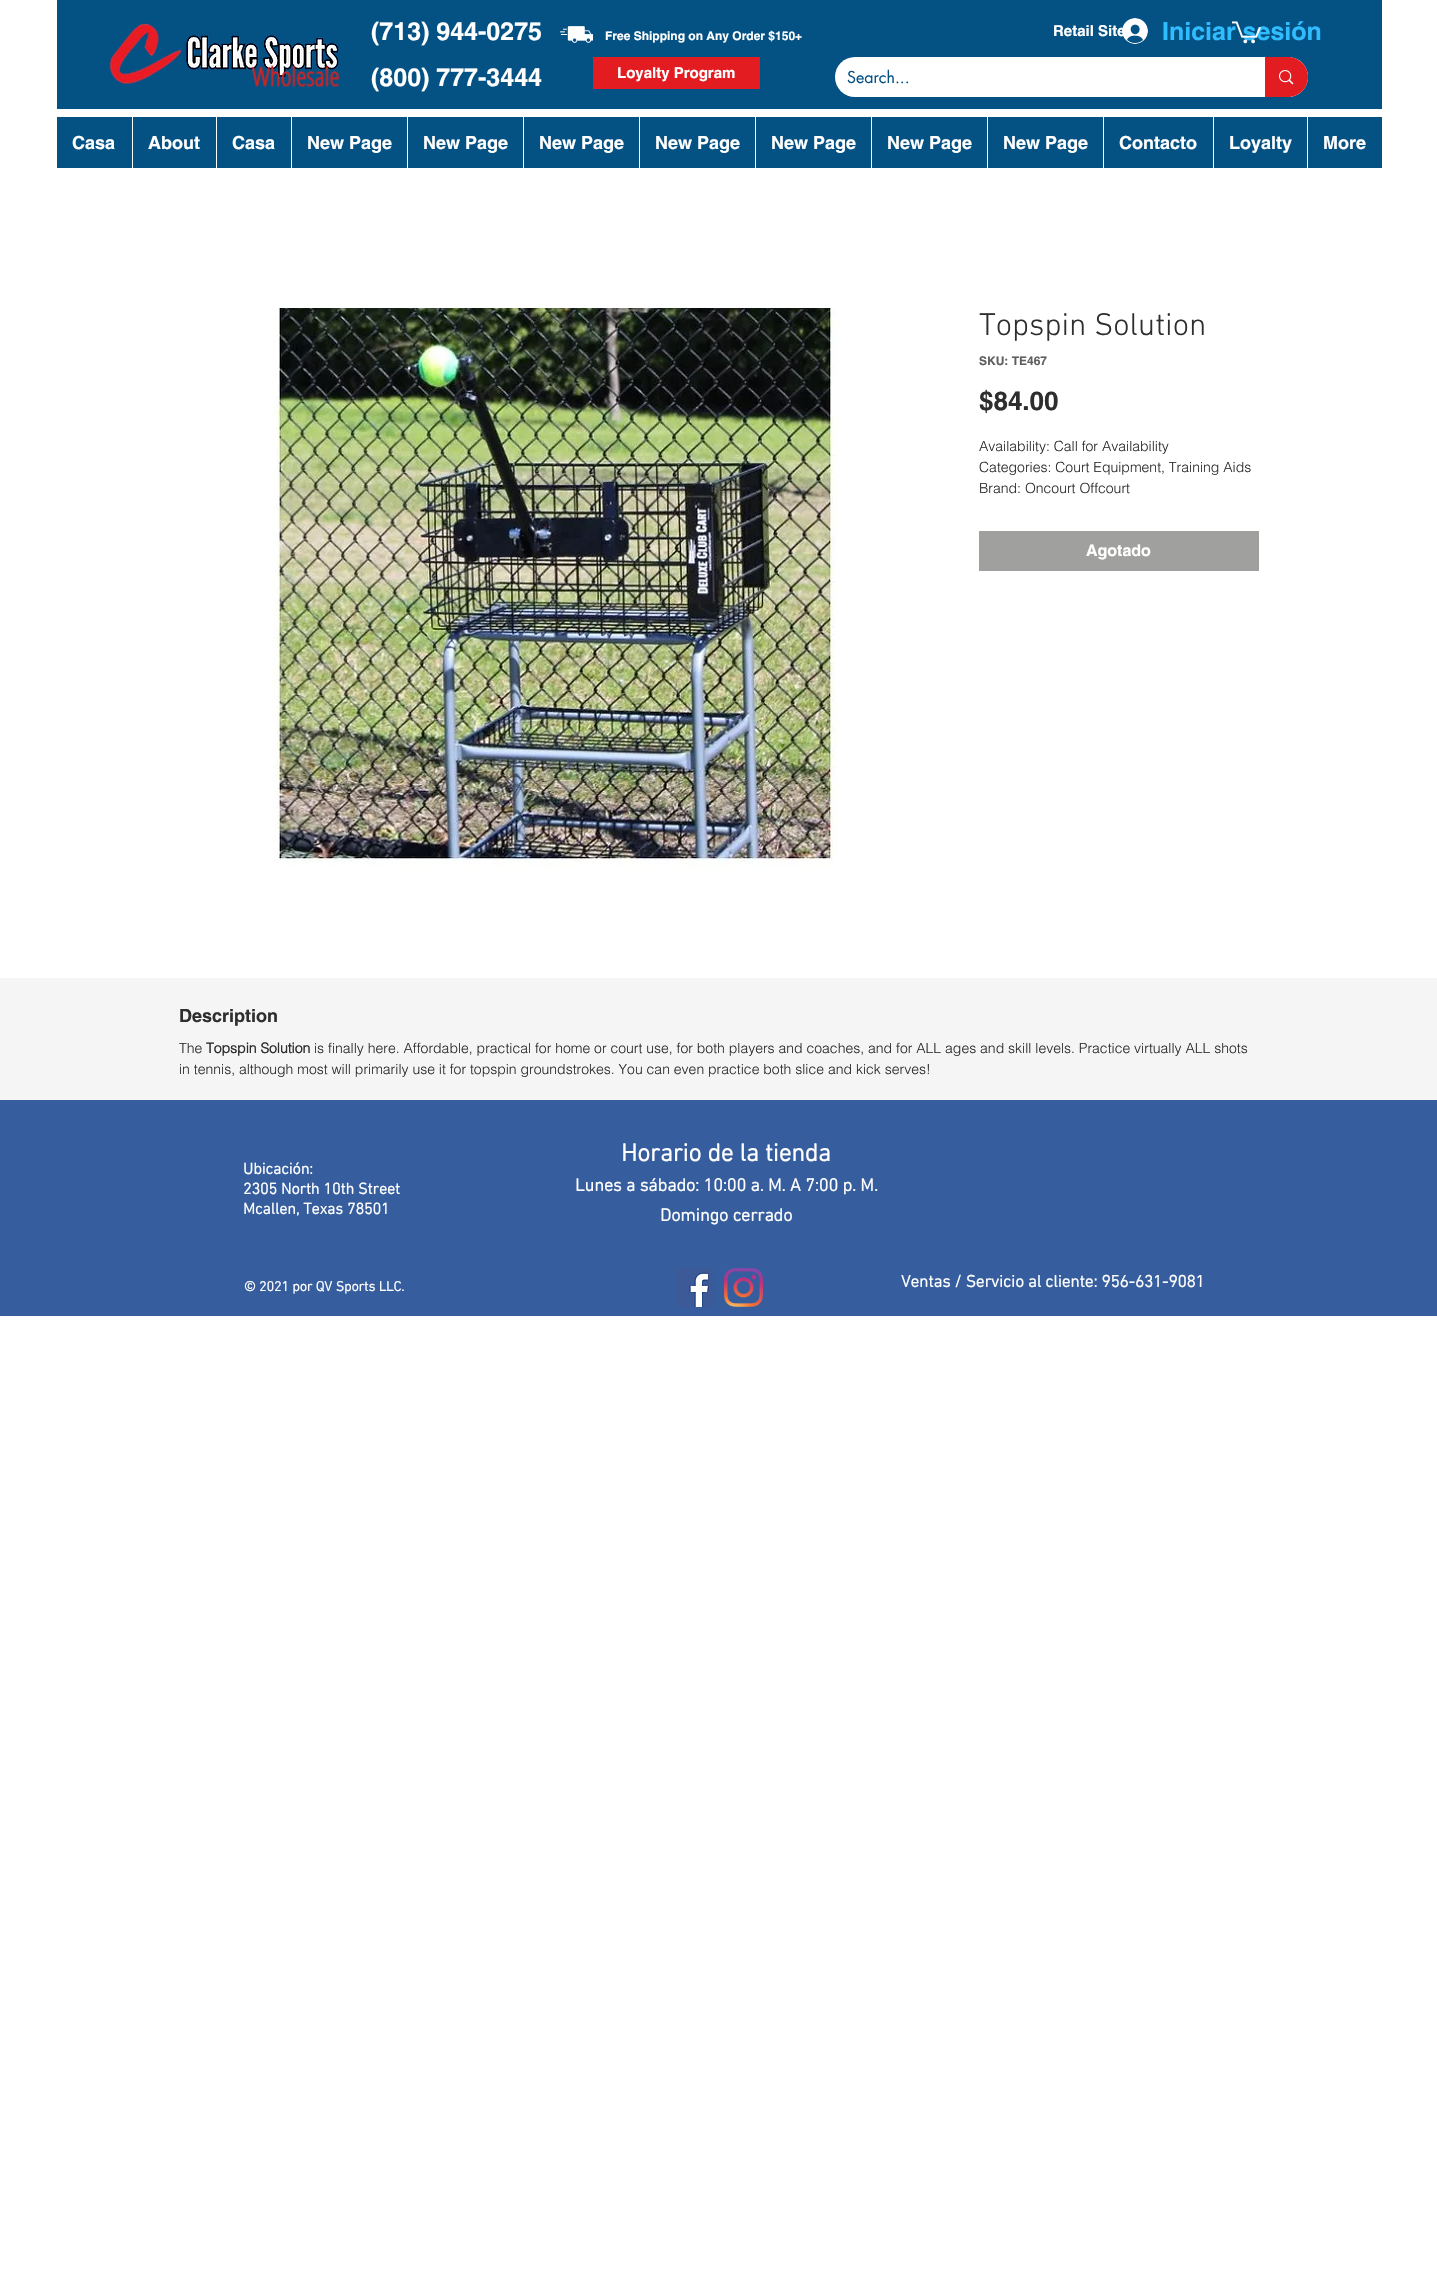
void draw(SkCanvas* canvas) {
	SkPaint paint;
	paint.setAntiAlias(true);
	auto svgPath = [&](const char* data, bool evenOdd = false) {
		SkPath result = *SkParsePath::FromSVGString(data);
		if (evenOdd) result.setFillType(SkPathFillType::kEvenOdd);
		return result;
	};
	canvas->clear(0xffffffff);
	paint.setColor(0xff045184);
	canvas->drawRect(SkRect::MakeXYWH(57, 0, 1325, 109), paint);
	SkFont f1(fontMgr->matchFamilyStyle("helvetica", SkFontStyle::Bold()), 25);
	f1.setSubpixel(true);
	paint.setColor(0xffffffff);
	canvas->drawString("(713) 944-0275", 371, 40, f1, paint);
	SkFont f2(fontMgr->matchFamilyStyle("helvetica", SkFontStyle::Bold()), 15);
	f2.setSubpixel(true);
	canvas->drawString("Retail Site", 1053, 36, f2, paint);
	canvas->drawImageRect(SkImages::DeferredFromEncodedData(SkData::MakeFromFileName("img1.png")), SkRect::MakeXYWH(1122, 18, 26, 26), SkSamplingOptions());
	paint.setColor(0xff30bdff);
	canvas->drawString("Iniciar sesión", 1162, 40, f1, paint);
	canvas->drawImageRect(SkImages::DeferredFromEncodedData(SkData::MakeFromFileName("img2.png")), SkRect::MakeXYWH(110, 23, 230, 64), SkSamplingOptions());
	canvas->drawImageRect(SkImages::DeferredFromEncodedData(SkData::MakeFromFileName("img3.png")), SkRect::MakeXYWH(560, 26, 33, 17), SkSamplingOptions());
	SkFont f3(fontMgr->matchFamilyStyle("helvetica", SkFontStyle::Bold()), 12);
	f3.setSubpixel(true);
	paint.setColor(0xffffffff);
	canvas->drawString("Free Shipping on Any Order $150+", 605, 40, f3, paint);
	canvas->drawImageRect(SkImages::DeferredFromEncodedData(SkData::MakeFromFileName("img4.png")), SkRect::MakeXYWH(1232, 21, 29, 23), SkSamplingOptions());
	canvas->drawString("(800) 777-3444", 371, 86, f1, paint);
	paint.setColor(0xffe21c21);
	canvas->drawRect(SkRect::MakeXYWH(593, 57, 167, 32), paint);
	paint.setColor(0xffffffff);
	canvas->drawString("Loyalty Program", 617, 78, f2, paint);
	canvas->drawRoundRect(SkRect::MakeXYWH(835, 57, 473, 40), 20, 20, paint);
	SkFont f4(fontMgr->matchFamilyStyle("futura", SkFontStyle::Normal()), 16);
	f4.setSubpixel(true);
	paint.setColor(0xff045184);
	canvas->drawString("Search...", 847, 83, f4, paint);
	paint.setColor(0xffe21c21);
	canvas->drawPath(svgPath("M1265 57H1288C1299 57 1308 66 1308 77C1308 88 1299 97 1288 97H1265Z"), paint);
	canvas->drawImageRect(SkImages::DeferredFromEncodedData(SkData::MakeFromFileName("img5.png")), SkRect::MakeXYWH(1279, 70, 15, 15), SkSamplingOptions());
	paint.setColor(0xff045184);
	canvas->drawRect(SkRect::MakeXYWH(57, 117, 1325, 51), paint);
	SkFont f5(fontMgr->matchFamilyStyle("helvetica", SkFontStyle::Bold()), 18);
	f5.setSubpixel(true);
	paint.setColor(0xffffffff);
	canvas->drawString("Casa", 72, 149, f5, paint);
	canvas->drawRect(SkRect::MakeXYWH(132, 117, 1, 51), paint);
	canvas->drawString("About", 148, 149, f5, paint);
	canvas->drawRect(SkRect::MakeXYWH(216, 117, 1, 51), paint);
	canvas->drawString("Casa", 232, 149, f5, paint);
	canvas->drawRect(SkRect::MakeXYWH(291, 117, 1, 51), paint);
	canvas->drawString("New Page", 307, 149, f5, paint);
	canvas->drawRect(SkRect::MakeXYWH(407, 117, 1, 51), paint);
	canvas->drawString("New Page", 423, 149, f5, paint);
	canvas->drawRect(SkRect::MakeXYWH(523, 117, 1, 51), paint);
	canvas->drawString("New Page", 539, 149, f5, paint);
	canvas->drawRect(SkRect::MakeXYWH(639, 117, 1, 51), paint);
	canvas->drawString("New Page", 655, 149, f5, paint);
	canvas->drawRect(SkRect::MakeXYWH(755, 117, 1, 51), paint);
	canvas->drawString("New Page", 771, 149, f5, paint);
	canvas->drawRect(SkRect::MakeXYWH(871, 117, 1, 51), paint);
	canvas->drawString("New Page", 887, 149, f5, paint);
	canvas->drawRect(SkRect::MakeXYWH(987, 117, 1, 51), paint);
	canvas->drawString("New Page", 1003, 149, f5, paint);
	canvas->drawRect(SkRect::MakeXYWH(1103, 117, 1, 51), paint);
	canvas->drawString("Contacto", 1119, 149, f5, paint);
	canvas->drawRect(SkRect::MakeXYWH(1213, 117, 1, 51), paint);
	canvas->drawString("Loyalty", 1229, 149, f5, paint);
	canvas->drawRect(SkRect::MakeXYWH(1307, 117, 1, 51), paint);
	canvas->drawString("More", 1323, 149, f5, paint);
	canvas->drawImageRect(SkImages::DeferredFromEncodedData(SkData::MakeFromFileName("img6.png")), SkRect::MakeXYWH(273, 308, 564, 560), SkSamplingOptions());
	SkFont f6(fontMgr->matchFamilyStyle("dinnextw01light", SkFontStyle(300, SkFontStyle::kNormal_Width, SkFontStyle::kUpright_Slant)), 32);
	f6.setSubpixel(true);
	paint.setColor(0xff2f2e2e);
	canvas->drawString("Topspin Solution", 979, 335, f6, paint);
	paint.setColor(0xff605e5e);
	canvas->drawString("SKU: TE467", 979, 365, f3, paint);
	SkFont f7(fontMgr->matchFamilyStyle("helvetica", SkFontStyle::Bold()), 26);
	f7.setSubpixel(true);
	paint.setColor(0xff2f2e2e);
	canvas->drawString("$84.00", 979, 410, f7, paint);
	SkFont f8(fontMgr->matchFamilyStyle("helvetica", SkFontStyle(300, SkFontStyle::kNormal_Width, SkFontStyle::kUpright_Slant)), 14);
	f8.setSubpixel(true);
	canvas->drawString("Availability: Call for Availability", 979, 451, f8, paint);
	canvas->drawString("Categories: Court Equipment, Training Aids", 979, 472, f8, paint);
	canvas->drawString("Brand: Oncourt Offcourt", 979, 493, f8, paint);
	paint.setColor(0xffa0a09f);
	canvas->drawRect(SkRect::MakeXYWH(979, 531, 280, 40), paint);
	SkFont f9(fontMgr->matchFamilyStyle("helvetica", SkFontStyle::Bold()), 16);
	f9.setSubpixel(true);
	paint.setColor(0xffffffff);
	canvas->drawString("Agotado", 1086, 556, f9, paint);
	paint.setColor(0xfff5f5f5);
	canvas->drawRect(SkRect::MakeXYWH(0, 978, 1437, 122), paint);
	paint.setColor(0xff2f2e2e);
	canvas->drawString("Description", 179, 1022, f5, paint);
	canvas->drawString("The", 179, 1053, f8, paint);
	SkFont f10(fontMgr->matchFamilyStyle("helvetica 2", SkFontStyle::Bold()), 14);
	f10.setSubpixel(true);
	canvas->drawString("Topspin Solution", 206, 1053, f10, paint);
	canvas->drawString("is finally here. Affordable, practical for home or court use, for both players and coaches, and for ALL ages and skill levels. Practice virtually ALL shots", 314, 1053, f8, paint);
	canvas->drawString("in tennis, although most will primarily use it for topspin groundstrokes. You can even practice both slice and kick serves!", 179, 1074, f8, paint);
	paint.setColor(0xff365d9d);
	canvas->drawRect(SkRect::MakeXYWH(0, 1100, 1437, 216), paint);
	SkFont f11(fontMgr->matchFamilyStyle("dinnextw01light", SkFontStyle::Bold()), 16);
	f11.setSubpixel(true);
	paint.setColor(0xffffffff);
	canvas->drawString("Ubicación:", 243, 1174, f11, paint);
	canvas->drawString("2305 North 10th Street", 243, 1194, f11, paint);
	canvas->drawString("Mcallen, Texas 78501", 243, 1214, f11, paint);
	SkFont f12(fontMgr->matchFamilyStyle("dinnextw01light", SkFontStyle::Bold()), 25);
	f12.setSubpixel(true);
	canvas->drawString("Horario de la tienda", 621, 1161, f12, paint);
	SkFont f13(fontMgr->matchFamilyStyle("dinnextw01light", SkFontStyle::Bold()), 18);
	f13.setSubpixel(true);
	canvas->drawString("Lunes a sábado: 10:00 a. M. A 7:00 p. M.", 575, 1191, f13, paint);
	canvas->drawString("Domingo cerrado", 660, 1221, f13, paint);
	SkFont f14(fontMgr->matchFamilyStyle("dinnextw01light", SkFontStyle::Bold()), 14);
	f14.setSubpixel(true);
	canvas->drawString("© 2021 por QV Sports LLC.", 244, 1291, f14, paint);
	canvas->drawImageRect(SkImages::DeferredFromEncodedData(SkData::MakeFromFileName("img7.png")), SkRect::MakeXYWH(675, 1268, 39, 39), SkSamplingOptions());
	canvas->drawImageRect(SkImages::DeferredFromEncodedData(SkData::MakeFromFileName("img8.png")), SkRect::MakeXYWH(724, 1268, 39, 39), SkSamplingOptions());
	SkFont f15(fontMgr->matchFamilyStyle("dinnextw01light", SkFontStyle::Bold()), 17);
	f15.setSubpixel(true);
	canvas->drawString("Ventas / Servicio al cliente: 956-631-9081", 901, 1287, f15, paint);
}
